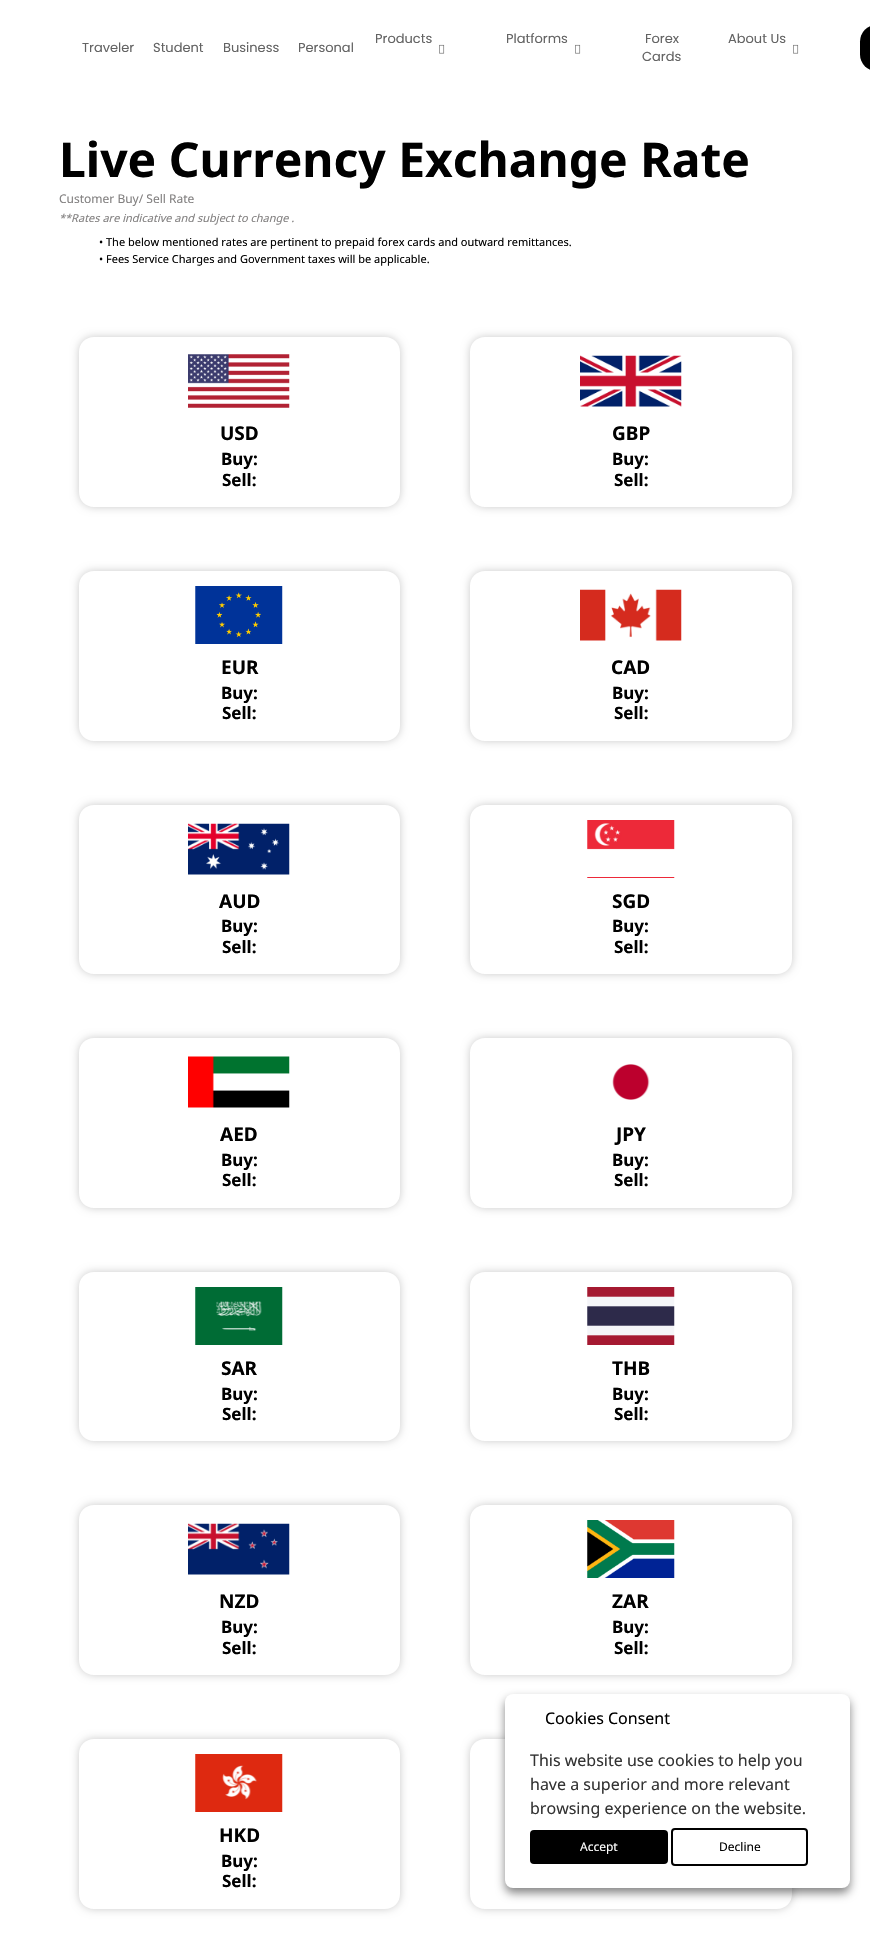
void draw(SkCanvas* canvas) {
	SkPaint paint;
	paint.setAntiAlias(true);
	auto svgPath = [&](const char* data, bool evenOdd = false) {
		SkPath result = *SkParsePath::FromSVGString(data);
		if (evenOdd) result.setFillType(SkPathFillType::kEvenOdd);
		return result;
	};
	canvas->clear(0xffffffff);
	SkFont f1(fontMgr->matchFamilyStyle("Poppins", SkFontStyle::Normal()), 13);
	f1.setSubpixel(true);
	paint.setColor(0xff636363);
	canvas->drawString("Traveler", 82, 52, f1, paint);
	canvas->drawString("Student", 153, 52, f1, paint);
	canvas->drawString("Business", 223, 52, f1, paint);
	canvas->drawString("Personal", 298, 52, f1, paint);
	canvas->drawString("Products", 375, 43, f1, paint);
	canvas->drawImageRect(SkImages::DeferredFromEncodedData(SkData::MakeFromFileName("img1.png")), SkRect::MakeXYWH(439, 44, 6, 10), SkSamplingOptions());
	canvas->drawString("Platforms", 506, 43, f1, paint);
	canvas->drawImageRect(SkImages::DeferredFromEncodedData(SkData::MakeFromFileName("img1.png")), SkRect::MakeXYWH(575, 44, 6, 10), SkSamplingOptions());
	canvas->drawString("Forex", 645, 43, f1, paint);
	canvas->drawString("Cards", 642, 61, f1, paint);
	canvas->drawString("About Us", 728, 43, f1, paint);
	canvas->drawImageRect(SkImages::DeferredFromEncodedData(SkData::MakeFromFileName("img1.png")), SkRect::MakeXYWH(793, 44, 6, 10), SkSamplingOptions());
	paint.setColor(0xff000000);
	canvas->drawRoundRect(SkRect::MakeXYWH(860, 25, 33, 46), 23, 23, paint);
	SkFont f2(fontMgr->matchFamilyStyle("Noto Sans", SkFontStyle::Bold()), 48);
	f2.setSubpixel(true);
	canvas->drawString("Live Currency Exchange Rate", 59, 177, f2, paint);
	SkFont f3(fontMgr->matchFamilyStyle("Noto Sans", SkFontStyle::Normal()), 12);
	f3.setSubpixel(true);
	paint.setColor(0xff838181);
	canvas->drawString("Customer Buy/ Sell Rate", 59, 203, f3, paint);
	SkFont f4(fontMgr->matchFamilyStyle("Noto Sans", SkFontStyle::Italic()), 11);
	f4.setSubpixel(true);
	canvas->drawString("**Rates are indicative and subject to change .", 59, 222, f4, paint);
	SkFont f5(fontMgr->matchFamilyStyle("Noto Sans", SkFontStyle::Normal()), 11);
	f5.setSubpixel(true);
	paint.setColor(0xff000000);
	canvas->drawString("• The below mentioned rates are pertinent to prepaid forex cards and outward remittances.", 99, 246, f5, paint);
	canvas->drawString("• Fees Service Charges and Government taxes will be applicable.", 99, 263, f5, paint);
	canvas->save();
	canvas->clipPath(svgPath("M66 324H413V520H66ZM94 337H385C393.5 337 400 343.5 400 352V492C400 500.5 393.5 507 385 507H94C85.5 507 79 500.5 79 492V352C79 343.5 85.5 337 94 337Z", true), true);
	paint.setColor(0xffcacaca);
	paint.setMaskFilter(SkMaskFilter::MakeBlur(kNormal_SkBlurStyle, 4));
	canvas->drawRoundRect(SkRect::MakeXYWH(79, 337, 321, 170), 15, 15, paint);
	paint.setMaskFilter(nullptr);
	canvas->restore();
	canvas->drawImageRect(SkImages::DeferredFromEncodedData(SkData::MakeFromFileName("img2.png")), SkRect::MakeXYWH(188, 354, 102, 54), SkSamplingOptions());
	SkFont f6(fontMgr->matchFamilyStyle("Noto Sans", SkFontStyle::Bold()), 19);
	f6.setSubpixel(true);
	paint.setColor(0xff000000);
	canvas->drawString("USD", 220, 440, f6, paint);
	SkFont f7(fontMgr->matchFamilyStyle("Noto Sans", SkFontStyle::Bold()), 17);
	f7.setSubpixel(true);
	canvas->drawString("Buy:", 221, 465, f7, paint);
	canvas->drawString("Sell:", 222, 486, f7, paint);
	canvas->save();
	canvas->clipPath(svgPath("M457 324H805V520H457ZM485 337H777C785.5 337 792 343.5 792 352V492C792 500.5 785.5 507 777 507H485C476.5 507 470 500.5 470 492V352C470 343.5 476.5 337 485 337Z", true), true);
	paint.setColor(0xffcacaca);
	paint.setMaskFilter(SkMaskFilter::MakeBlur(kNormal_SkBlurStyle, 4));
	canvas->drawRoundRect(SkRect::MakeXYWH(470, 337, 322, 170), 15, 15, paint);
	paint.setMaskFilter(nullptr);
	canvas->restore();
	canvas->drawImageRect(SkImages::DeferredFromEncodedData(SkData::MakeFromFileName("img3.png")), SkRect::MakeXYWH(580, 355, 102, 52), SkSamplingOptions());
	paint.setColor(0xff000000);
	canvas->drawString("GBP", 612, 440, f6, paint);
	canvas->drawString("Buy:", 612, 465, f7, paint);
	canvas->drawString("Sell:", 614, 486, f7, paint);
	canvas->save();
	canvas->clipPath(svgPath("M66 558H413V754H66ZM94 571H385C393.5 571 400 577.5 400 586V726C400 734.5 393.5 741 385 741H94C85.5 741 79 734.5 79 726V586C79 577.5 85.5 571 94 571Z", true), true);
	paint.setColor(0xffcacaca);
	paint.setMaskFilter(SkMaskFilter::MakeBlur(kNormal_SkBlurStyle, 4));
	canvas->drawRoundRect(SkRect::MakeXYWH(79, 571, 321, 170), 15, 15, paint);
	paint.setMaskFilter(nullptr);
	canvas->restore();
	canvas->drawImageRect(SkImages::DeferredFromEncodedData(SkData::MakeFromFileName("img4.png")), SkRect::MakeXYWH(195, 586, 88, 58), SkSamplingOptions());
	paint.setColor(0xff000000);
	canvas->drawString("EUR", 221, 674, f6, paint);
	canvas->drawString("Buy:", 221, 699, f7, paint);
	canvas->drawString("Sell:", 222, 719, f7, paint);
	canvas->save();
	canvas->clipPath(svgPath("M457 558H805V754H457ZM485 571H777C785.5 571 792 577.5 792 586V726C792 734.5 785.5 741 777 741H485C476.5 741 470 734.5 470 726V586C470 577.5 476.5 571 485 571Z", true), true);
	paint.setColor(0xffcacaca);
	paint.setMaskFilter(SkMaskFilter::MakeBlur(kNormal_SkBlurStyle, 4));
	canvas->drawRoundRect(SkRect::MakeXYWH(470, 571, 322, 170), 15, 15, paint);
	paint.setMaskFilter(nullptr);
	canvas->restore();
	canvas->drawImageRect(SkImages::DeferredFromEncodedData(SkData::MakeFromFileName("img5.png")), SkRect::MakeXYWH(580, 589, 102, 52), SkSamplingOptions());
	paint.setColor(0xff000000);
	canvas->drawString("CAD", 611, 674, f6, paint);
	canvas->drawString("Buy:", 612, 699, f7, paint);
	canvas->drawString("Sell:", 614, 719, f7, paint);
	canvas->save();
	canvas->clipPath(svgPath("M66 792H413V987H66ZM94 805H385C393.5 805 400 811.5 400 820V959C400 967.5 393.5 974 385 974H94C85.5 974 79 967.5 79 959V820C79 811.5 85.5 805 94 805Z", true), true);
	paint.setColor(0xffcacaca);
	paint.setMaskFilter(SkMaskFilter::MakeBlur(kNormal_SkBlurStyle, 4));
	canvas->drawRoundRect(SkRect::MakeXYWH(79, 805, 321, 169), 15, 15, paint);
	paint.setMaskFilter(nullptr);
	canvas->restore();
	canvas->drawImageRect(SkImages::DeferredFromEncodedData(SkData::MakeFromFileName("img6.png")), SkRect::MakeXYWH(188, 823, 102, 52), SkSamplingOptions());
	paint.setColor(0xff000000);
	canvas->drawString("AUD", 219, 908, f6, paint);
	canvas->drawString("Buy:", 221, 932, f7, paint);
	canvas->drawString("Sell:", 222, 953, f7, paint);
	canvas->save();
	canvas->clipPath(svgPath("M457 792H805V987H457ZM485 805H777C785.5 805 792 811.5 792 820V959C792 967.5 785.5 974 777 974H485C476.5 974 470 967.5 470 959V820C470 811.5 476.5 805 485 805Z", true), true);
	paint.setColor(0xffcacaca);
	paint.setMaskFilter(SkMaskFilter::MakeBlur(kNormal_SkBlurStyle, 4));
	canvas->drawRoundRect(SkRect::MakeXYWH(470, 805, 322, 169), 15, 15, paint);
	paint.setMaskFilter(nullptr);
	canvas->restore();
	canvas->drawImageRect(SkImages::DeferredFromEncodedData(SkData::MakeFromFileName("img7.png")), SkRect::MakeXYWH(587, 820, 88, 58), SkSamplingOptions());
	paint.setColor(0xff000000);
	canvas->drawString("SGD", 612, 908, f6, paint);
	canvas->drawString("Buy:", 612, 932, f7, paint);
	canvas->drawString("Sell:", 614, 953, f7, paint);
	canvas->save();
	canvas->clipPath(svgPath("M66 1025H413V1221H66ZM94 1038H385C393.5 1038 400 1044.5 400 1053V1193C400 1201.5 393.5 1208 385 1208H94C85.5 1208 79 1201.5 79 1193V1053C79 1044.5 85.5 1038 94 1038Z", true), true);
	paint.setColor(0xffcacaca);
	paint.setMaskFilter(SkMaskFilter::MakeBlur(kNormal_SkBlurStyle, 4));
	canvas->drawRoundRect(SkRect::MakeXYWH(79, 1038, 321, 170), 15, 15, paint);
	paint.setMaskFilter(nullptr);
	canvas->restore();
	canvas->drawImageRect(SkImages::DeferredFromEncodedData(SkData::MakeFromFileName("img8.png")), SkRect::MakeXYWH(188, 1056, 102, 52), SkSamplingOptions());
	paint.setColor(0xff000000);
	canvas->drawString("AED", 220, 1141, f6, paint);
	canvas->drawString("Buy:", 221, 1166, f7, paint);
	canvas->drawString("Sell:", 222, 1186, f7, paint);
	canvas->save();
	canvas->clipPath(svgPath("M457 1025H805V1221H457ZM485 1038H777C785.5 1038 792 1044.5 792 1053V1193C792 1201.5 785.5 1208 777 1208H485C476.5 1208 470 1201.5 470 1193V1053C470 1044.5 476.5 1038 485 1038Z", true), true);
	paint.setColor(0xffcacaca);
	paint.setMaskFilter(SkMaskFilter::MakeBlur(kNormal_SkBlurStyle, 4));
	canvas->drawRoundRect(SkRect::MakeXYWH(470, 1038, 322, 170), 15, 15, paint);
	paint.setMaskFilter(nullptr);
	canvas->restore();
	canvas->drawImageRect(SkImages::DeferredFromEncodedData(SkData::MakeFromFileName("img9.png")), SkRect::MakeXYWH(612, 1064, 38, 36), SkSamplingOptions());
	paint.setColor(0xff000000);
	canvas->drawString("JPY", 616, 1141, f6, paint);
	canvas->drawString("Buy:", 612, 1166, f7, paint);
	canvas->drawString("Sell:", 614, 1186, f7, paint);
	canvas->save();
	canvas->clipPath(svgPath("M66 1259H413V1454H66ZM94 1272H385C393.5 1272 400 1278.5 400 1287V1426C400 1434.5 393.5 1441 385 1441H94C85.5 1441 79 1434.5 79 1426V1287C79 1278.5 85.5 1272 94 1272Z", true), true);
	paint.setColor(0xffcacaca);
	paint.setMaskFilter(SkMaskFilter::MakeBlur(kNormal_SkBlurStyle, 4));
	canvas->drawRoundRect(SkRect::MakeXYWH(79, 1272, 321, 169), 15, 15, paint);
	paint.setMaskFilter(nullptr);
	canvas->restore();
	canvas->drawImageRect(SkImages::DeferredFromEncodedData(SkData::MakeFromFileName("img10.png")), SkRect::MakeXYWH(195, 1287, 88, 58), SkSamplingOptions());
	paint.setColor(0xff000000);
	canvas->drawString("SAR", 221, 1375, f6, paint);
	canvas->drawString("Buy:", 221, 1400, f7, paint);
	canvas->drawString("Sell:", 222, 1420, f7, paint);
	canvas->save();
	canvas->clipPath(svgPath("M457 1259H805V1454H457ZM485 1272H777C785.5 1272 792 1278.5 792 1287V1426C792 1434.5 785.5 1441 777 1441H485C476.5 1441 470 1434.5 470 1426V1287C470 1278.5 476.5 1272 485 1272Z", true), true);
	paint.setColor(0xffcacaca);
	paint.setMaskFilter(SkMaskFilter::MakeBlur(kNormal_SkBlurStyle, 4));
	canvas->drawRoundRect(SkRect::MakeXYWH(470, 1272, 322, 169), 15, 15, paint);
	paint.setMaskFilter(nullptr);
	canvas->restore();
	canvas->drawImageRect(SkImages::DeferredFromEncodedData(SkData::MakeFromFileName("img11.png")), SkRect::MakeXYWH(587, 1287, 88, 58), SkSamplingOptions());
	paint.setColor(0xff000000);
	canvas->drawString("THB", 612, 1375, f6, paint);
	canvas->drawString("Buy:", 612, 1400, f7, paint);
	canvas->drawString("Sell:", 614, 1420, f7, paint);
	canvas->save();
	canvas->clipPath(svgPath("M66 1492H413V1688H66ZM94 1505H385C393.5 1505 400 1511.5 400 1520V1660C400 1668.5 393.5 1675 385 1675H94C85.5 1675 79 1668.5 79 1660V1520C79 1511.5 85.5 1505 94 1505Z", true), true);
	paint.setColor(0xffcacaca);
	paint.setMaskFilter(SkMaskFilter::MakeBlur(kNormal_SkBlurStyle, 4));
	canvas->drawRoundRect(SkRect::MakeXYWH(79, 1505, 321, 170), 15, 15, paint);
	paint.setMaskFilter(nullptr);
	canvas->restore();
	canvas->drawImageRect(SkImages::DeferredFromEncodedData(SkData::MakeFromFileName("img12.png")), SkRect::MakeXYWH(188, 1523, 102, 52), SkSamplingOptions());
	paint.setColor(0xff000000);
	canvas->drawString("NZD", 219, 1608, f6, paint);
	canvas->drawString("Buy:", 221, 1633, f7, paint);
	canvas->drawString("Sell:", 222, 1654, f7, paint);
	canvas->save();
	canvas->clipPath(svgPath("M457 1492H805V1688H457ZM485 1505H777C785.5 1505 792 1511.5 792 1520V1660C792 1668.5 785.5 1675 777 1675H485C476.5 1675 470 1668.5 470 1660V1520C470 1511.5 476.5 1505 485 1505Z", true), true);
	paint.setColor(0xffcacaca);
	paint.setMaskFilter(SkMaskFilter::MakeBlur(kNormal_SkBlurStyle, 4));
	canvas->drawRoundRect(SkRect::MakeXYWH(470, 1505, 322, 170), 15, 15, paint);
	paint.setMaskFilter(nullptr);
	canvas->restore();
	canvas->drawImageRect(SkImages::DeferredFromEncodedData(SkData::MakeFromFileName("img13.png")), SkRect::MakeXYWH(587, 1520, 88, 58), SkSamplingOptions());
	paint.setColor(0xff000000);
	canvas->drawString("ZAR", 612, 1608, f6, paint);
	canvas->drawString("Buy:", 612, 1633, f7, paint);
	canvas->drawString("Sell:", 614, 1654, f7, paint);
	canvas->save();
	canvas->clipPath(svgPath("M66 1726H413V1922H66ZM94 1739H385C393.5 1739 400 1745.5 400 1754V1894C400 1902.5 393.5 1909 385 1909H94C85.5 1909 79 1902.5 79 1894V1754C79 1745.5 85.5 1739 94 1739Z", true), true);
	paint.setColor(0xffcacaca);
	paint.setMaskFilter(SkMaskFilter::MakeBlur(kNormal_SkBlurStyle, 4));
	canvas->drawRoundRect(SkRect::MakeXYWH(79, 1739, 321, 170), 15, 15, paint);
	paint.setMaskFilter(nullptr);
	canvas->restore();
	canvas->drawImageRect(SkImages::DeferredFromEncodedData(SkData::MakeFromFileName("img14.png")), SkRect::MakeXYWH(195, 1754, 88, 58), SkSamplingOptions());
	paint.setColor(0xff000000);
	canvas->drawString("HKD", 219, 1842, f6, paint);
	canvas->drawString("Buy:", 221, 1867, f7, paint);
	canvas->drawString("Sell:", 222, 1887, f7, paint);
	canvas->save();
	canvas->clipPath(svgPath("M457 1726H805V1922H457ZM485 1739H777C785.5 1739 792 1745.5 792 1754V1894C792 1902.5 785.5 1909 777 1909H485C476.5 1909 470 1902.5 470 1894V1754C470 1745.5 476.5 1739 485 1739Z", true), true);
	paint.setColor(0xffcacaca);
	paint.setMaskFilter(SkMaskFilter::MakeBlur(kNormal_SkBlurStyle, 4));
	canvas->drawRoundRect(SkRect::MakeXYWH(470, 1739, 322, 170), 15, 15, paint);
	paint.setMaskFilter(nullptr);
	canvas->restore();
	paint.setColor(0x7a000000);
	paint.setMaskFilter(SkMaskFilter::MakeBlur(kNormal_SkBlurStyle, 5));
	canvas->drawRoundRect(SkRect::MakeXYWH(505, 1699, 345, 194), 8, 8, paint);
	paint.setMaskFilter(nullptr);
	paint.setColor(0xffffffff);
	canvas->drawRoundRect(SkRect::MakeXYWH(505, 1694, 345, 194), 8, 8, paint);
	SkFont f8(fontMgr->matchFamilyStyle("Noto Sans", SkFontStyle::Normal()), 16);
	f8.setSubpixel(true);
	paint.setColor(0xff000000);
	canvas->drawString("Cookies Consent", 545, 1724, f8, paint);
	paint.setColor(0xff333333);
	canvas->drawString("This website use cookies to help you", 530, 1766, f8, paint);
	canvas->drawString("have a superior and more relevant", 530, 1790, f8, paint);
	canvas->drawString("browsing experience on the website.", 530, 1814, f8, paint);
	paint.setColor(0xff000000);
	canvas->drawRoundRect(SkRect::MakeXYWH(530, 1830, 138, 34), 4, 4, paint);
	paint.setColor(0xffffffff);
	canvas->drawString("Accept", 580, 1851, f3, paint);
	paint.setStroke(true);
	paint.setStrokeWidth(2);
	paint.setColor(0xff000000);
	canvas->drawRoundRect(SkRect::MakeXYWH(672, 1829, 135, 36), 3, 3, paint);
	paint.setStroke(false);
	canvas->drawString("Decline", 719, 1851, f3, paint);
}
